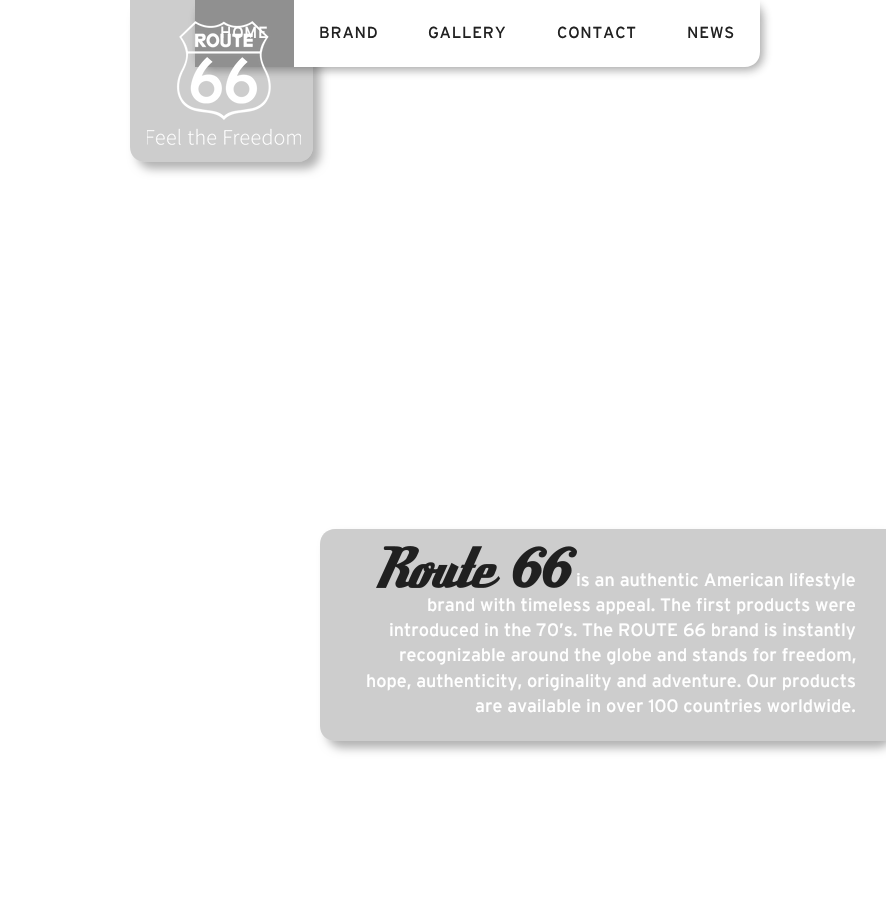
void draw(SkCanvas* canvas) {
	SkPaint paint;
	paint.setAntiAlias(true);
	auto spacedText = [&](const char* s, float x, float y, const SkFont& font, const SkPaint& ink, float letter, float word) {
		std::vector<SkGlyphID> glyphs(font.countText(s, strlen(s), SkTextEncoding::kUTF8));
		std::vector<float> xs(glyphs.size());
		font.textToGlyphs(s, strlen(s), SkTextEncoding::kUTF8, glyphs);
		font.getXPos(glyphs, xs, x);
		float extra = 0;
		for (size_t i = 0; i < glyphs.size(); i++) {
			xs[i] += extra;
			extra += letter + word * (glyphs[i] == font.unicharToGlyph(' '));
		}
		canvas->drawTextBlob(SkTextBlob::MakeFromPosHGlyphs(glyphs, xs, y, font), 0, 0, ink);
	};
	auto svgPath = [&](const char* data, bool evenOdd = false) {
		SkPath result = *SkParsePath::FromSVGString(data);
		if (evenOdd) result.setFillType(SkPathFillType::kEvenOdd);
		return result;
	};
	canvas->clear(0xffffffff);
	canvas->save();
	canvas->clipPath(svgPath("M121 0H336V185H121ZM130 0H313V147C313 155.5 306.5 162 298 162H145C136.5 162 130 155.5 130 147Z", true), true);
	paint.setColor(0x4d000000);
	paint.setMaskFilter(SkMaskFilter::MakeBlur(kNormal_SkBlurStyle, 5));
	canvas->drawRoundRect(SkRect::MakeXYWH(137, 7, 183, 162), 15, 15, paint);
	paint.setMaskFilter(nullptr);
	canvas->restore();
	paint.setColor(0x4d595959);
	canvas->drawPath(svgPath("M130 0H313V147C313 155.5 306.5 162 298 162H145C136.5 162 130 155.5 130 147Z"), paint);
	paint.setColor(0x66212121);
	paint.setMaskFilter(SkMaskFilter::MakeBlur(kNormal_SkBlurStyle, 5));
	canvas->drawRoundRect(SkRect::MakeXYWH(198, 3, 565, 67), 15, 15, paint);
	paint.setMaskFilter(nullptr);
	paint.setColor(0xffffffff);
	canvas->drawPath(svgPath("M195 0H760V52C760 60.5 753.5 67 745 67H210C201.5 67 195 60.5 195 52Z"), paint);
	paint.setColor(0xff909090);
	canvas->drawRect(SkRect::MakeXYWH(195, 0, 99, 67), paint);
	SkFont f1(fontMgr->matchFamilyStyle("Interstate", SkFontStyle::Normal()), 16);
	f1.setSubpixel(true);
	paint.setColor(0xffffffff);
	spacedText("HOME", 220, 38, f1, paint, 0.75, 0);
	canvas->drawImageRect(SkImages::DeferredFromEncodedData(SkData::MakeFromFileName("img1.png")), SkRect::MakeXYWH(147, 21, 154, 124), SkSamplingOptions());
	paint.setColor(0xff212121);
	spacedText("BRAND", 319, 38, f1, paint, 0.75, 0);
	spacedText("GALLERY", 428, 38, f1, paint, 0.75, 0);
	spacedText("CONTACT", 557, 38, f1, paint, 0.75, 0);
	spacedText("NEWS", 687, 38, f1, paint, 0.75, 0);
	canvas->save();
	canvas->clipPath(svgPath("M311 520H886V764H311ZM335 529H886V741H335C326.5 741 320 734.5 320 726V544C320 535.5 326.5 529 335 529Z", true), true);
	paint.setColor(0x4d000000);
	paint.setMaskFilter(SkMaskFilter::MakeBlur(kNormal_SkBlurStyle, 5));
	canvas->drawRoundRect(SkRect::MakeXYWH(327, 536, 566, 212), 15, 15, paint);
	paint.setMaskFilter(nullptr);
	canvas->restore();
	paint.setColor(0x4d595959);
	canvas->drawPath(svgPath("M335 529H886V741H335C326.5 741 320 734.5 320 726V544C320 535.5 326.5 529 335 529Z"), paint);
	canvas->drawImageRect(SkImages::DeferredFromEncodedData(SkData::MakeFromFileName("img2.png")), SkRect::MakeXYWH(376, 546, 201, 42), SkSamplingOptions());
	SkFont f2(fontMgr->matchFamilyStyle("Interstate", SkFontStyle::Normal()), 18);
	f2.setSubpixel(true);
	paint.setColor(0xffffffff);
	canvas->drawString("is an authentic American lifestyle", 576, 586, f2, paint);
	canvas->drawString("brand with timeless appeal. The first products were", 427, 611, f2, paint);
	canvas->drawString("introduced in the 70’s. The ROUTE 66 brand is instantly", 389, 636, f2, paint);
	canvas->drawString("recognizable around the globe and stands for freedom,", 399, 661, f2, paint);
	canvas->drawString("hope, authenticity, originality and adventure. Our products", 366, 687, f2, paint);
	canvas->drawString("are available in over 100 countries worldwide.", 475, 712, f2, paint);
}
